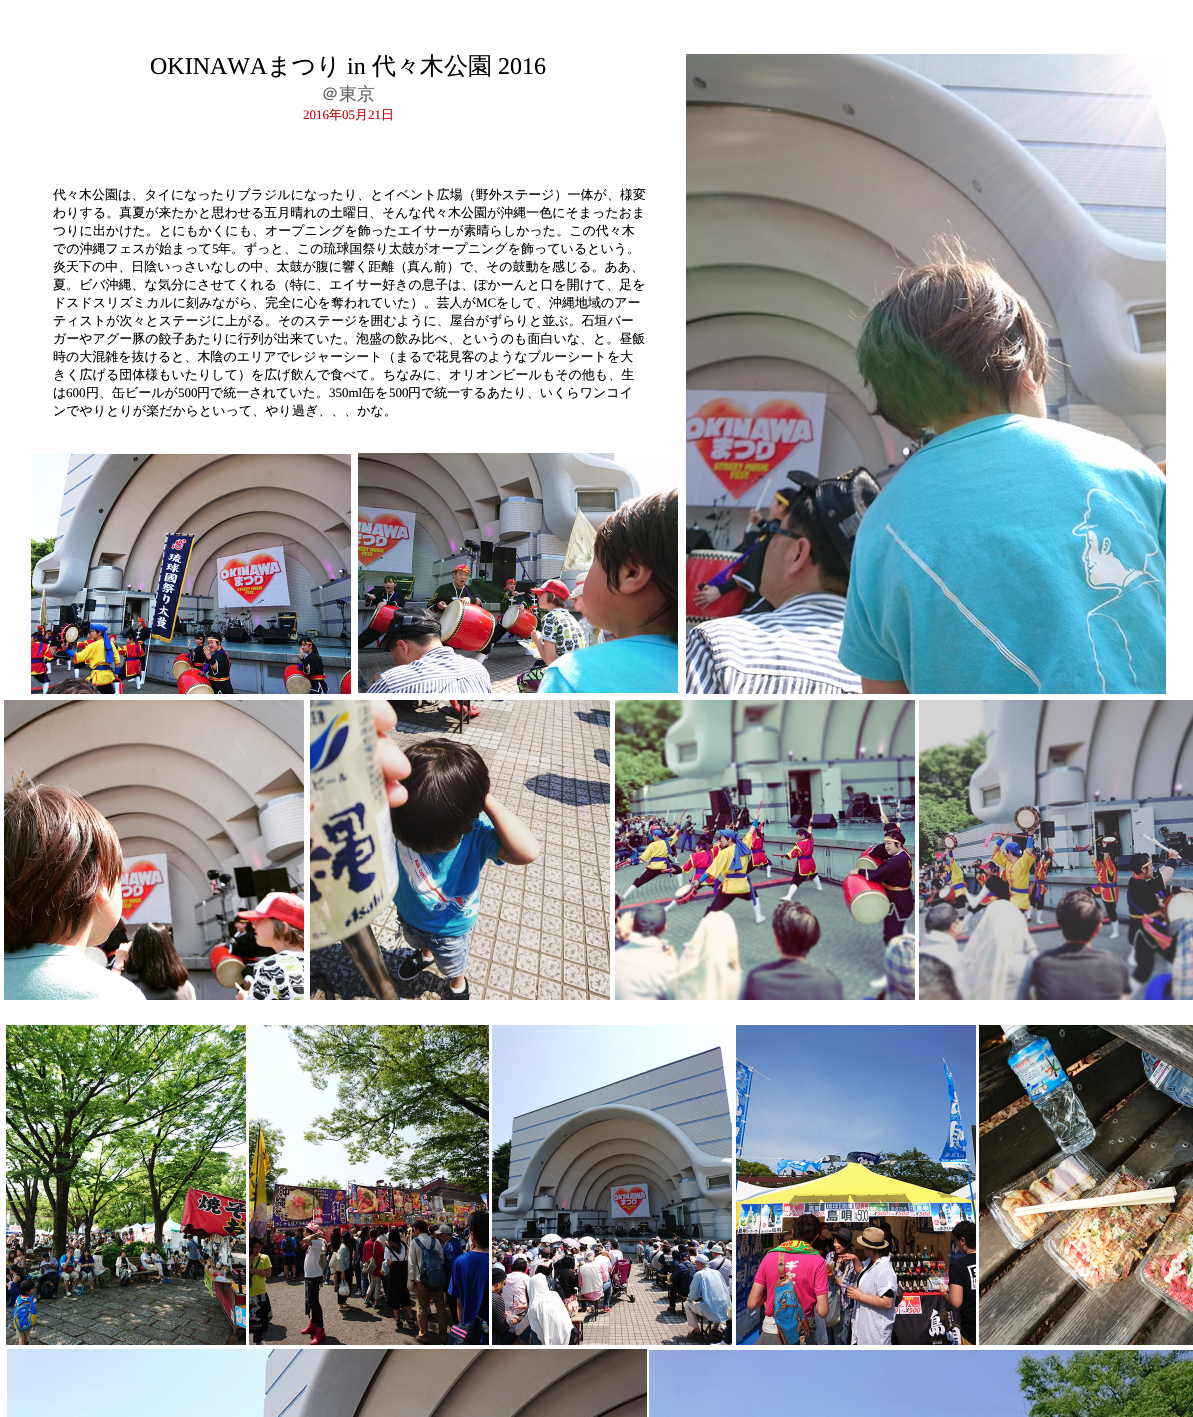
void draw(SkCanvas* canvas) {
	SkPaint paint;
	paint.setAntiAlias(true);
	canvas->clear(0xffffffff);
	SkFont f1(fontMgr->matchFamilyStyle("Liberation Serif", SkFontStyle::Normal()), 24);
	f1.setSubpixel(true);
	paint.setColor(0xff000000);
	canvas->drawString("OKINAWA", 150, 74, f1, paint);
	SkFont f2(fontMgr->matchFamilyStyle("WenQuanYi Zen Hei", SkFontStyle(500, SkFontStyle::kNormal_Width, SkFontStyle::kUpright_Slant)), 24);
	f2.setSubpixel(true);
	canvas->drawString("まつり", 267, 74, f2, paint);
	canvas->drawString("in", 347, 74, f1, paint);
	canvas->drawString("代々木公園", 372, 74, f2, paint);
	canvas->drawString("2016", 498, 74, f1, paint);
	SkFont f3(fontMgr->matchFamilyStyle("WenQuanYi Zen Hei", SkFontStyle(500, SkFontStyle::kNormal_Width, SkFontStyle::kUpright_Slant)), 18);
	f3.setSubpixel(true);
	paint.setColor(0xff666666);
	canvas->drawString("＠東京", 321, 100, f3, paint);
	SkFont f4(fontMgr->matchFamilyStyle("Liberation Serif", SkFontStyle::Normal()), 13);
	f4.setSubpixel(true);
	paint.setColor(0xffcc0000);
	canvas->drawString("2016", 303, 119, f4, paint);
	SkFont f5(fontMgr->matchFamilyStyle("WenQuanYi Zen Hei", SkFontStyle(500, SkFontStyle::kNormal_Width, SkFontStyle::kUpright_Slant)), 13);
	f5.setSubpixel(true);
	canvas->drawString("年", 329, 119, f5, paint);
	canvas->drawString("05", 342, 119, f4, paint);
	canvas->drawString("月", 355, 119, f5, paint);
	canvas->drawString("21", 368, 119, f4, paint);
	canvas->drawString("日", 381, 119, f5, paint);
	canvas->drawImageRect(SkImages::DeferredFromEncodedData(SkData::MakeFromFileName("img1.png")), SkRect::MakeXYWH(686, 54, 480, 640), SkSamplingOptions());
	paint.setColor(0xff000000);
	canvas->drawString("代々木公園は、タイになったりブラジルになったり、とイベント広場（野外ステージ）一体が、様変", 53, 199, f5, paint);
	canvas->drawString("わりする。真夏が来たかと思わせる五月晴れの土曜日、そんな代々木公園が沖縄一色にそまったおま", 53, 217, f5, paint);
	canvas->drawString("つりに出かけた。とにもかくにも、オープニングを飾ったエイサーが素晴らしかった。この代々木", 53, 235, f5, paint);
	canvas->drawString("での沖縄フェスが始まって", 53, 253, f5, paint);
	canvas->drawString("5", 212, 253, f4, paint);
	canvas->drawString("年。ずっと、この琉球国祭り太鼓がオープニングを飾っているという。", 218, 253, f5, paint);
	canvas->drawString("炎天下の中、日陰いっさいなしの中、太鼓が腹に響く距離（真ん前）で、その鼓動を感じる。ああ、", 53, 271, f5, paint);
	canvas->drawString("夏。ビバ沖縄、な気分にさせてくれる（特に、エイサー好きの息子は、ぽかーんと口を開けて、足を", 53, 289, f5, paint);
	canvas->drawString("ドスドスリズミカルに刻みながら、完全に心を奪われていた）。芸人が", 53, 307, f5, paint);
	canvas->drawString("MC", 476, 307, f4, paint);
	canvas->drawString("をして、沖縄地域のアー", 496, 307, f5, paint);
	canvas->drawString("ティストが次々とステージに上がる。そのステージを囲むように、屋台がずらりと並ぶ。石垣バー", 53, 325, f5, paint);
	canvas->drawString("ガーやアグー豚の餃子あたりに行列が出来ていた。泡盛の飲み比べ、というのも面白いな、と。昼飯", 53, 343, f5, paint);
	canvas->drawString("時の大混雑を抜けると、木陰のエリアでレジャーシート（まるで花見客のようなブルーシートを大", 53, 361, f5, paint);
	canvas->drawString("きく広げる団体様もいたりして）を広げ飲んで食べて。ちなみに、オリオンビールもその他も、生", 53, 379, f5, paint);
	canvas->drawString("は", 53, 397, f5, paint);
	canvas->drawString("600", 66, 397, f4, paint);
	canvas->drawString("円、缶ビールが", 86, 397, f5, paint);
	canvas->drawString("500", 178, 397, f4, paint);
	canvas->drawString("円で統一されていた。", 197, 397, f5, paint);
	canvas->drawString("350ml", 329, 397, f4, paint);
	canvas->drawString("缶を", 362, 397, f5, paint);
	canvas->drawString("500", 389, 397, f4, paint);
	canvas->drawString("円で統一するあたり、いくらワンコイ", 408, 397, f5, paint);
	canvas->drawString("ンでやりとりが楽だからといって、やり過ぎ、、、かな。", 53, 415, f5, paint);
	canvas->drawImageRect(SkImages::DeferredFromEncodedData(SkData::MakeFromFileName("img2.png")), SkRect::MakeXYWH(31, 454, 320, 240), SkSamplingOptions());
	canvas->drawImageRect(SkImages::DeferredFromEncodedData(SkData::MakeFromFileName("img3.png")), SkRect::MakeXYWH(358, 453, 320, 240), SkSamplingOptions());
	canvas->drawImageRect(SkImages::DeferredFromEncodedData(SkData::MakeFromFileName("img4.png")), SkRect::MakeXYWH(4, 700, 300, 300), SkSamplingOptions());
	canvas->drawImageRect(SkImages::DeferredFromEncodedData(SkData::MakeFromFileName("img5.png")), SkRect::MakeXYWH(310, 700, 300, 300), SkSamplingOptions());
	canvas->drawImageRect(SkImages::DeferredFromEncodedData(SkData::MakeFromFileName("img6.png")), SkRect::MakeXYWH(615, 700, 300, 300), SkSamplingOptions());
	canvas->drawImageRect(SkImages::DeferredFromEncodedData(SkData::MakeFromFileName("img7.png")), SkRect::MakeXYWH(919, 700, 274, 300), SkSamplingOptions());
	canvas->drawImageRect(SkImages::DeferredFromEncodedData(SkData::MakeFromFileName("img8.png")), SkRect::MakeXYWH(6, 1025, 240, 320), SkSamplingOptions());
	canvas->drawImageRect(SkImages::DeferredFromEncodedData(SkData::MakeFromFileName("img9.png")), SkRect::MakeXYWH(249, 1025, 240, 320), SkSamplingOptions());
	canvas->drawImageRect(SkImages::DeferredFromEncodedData(SkData::MakeFromFileName("img10.png")), SkRect::MakeXYWH(492, 1025, 240, 320), SkSamplingOptions());
	canvas->drawImageRect(SkImages::DeferredFromEncodedData(SkData::MakeFromFileName("img11.png")), SkRect::MakeXYWH(736, 1025, 240, 320), SkSamplingOptions());
	canvas->drawImageRect(SkImages::DeferredFromEncodedData(SkData::MakeFromFileName("img12.png")), SkRect::MakeXYWH(979, 1025, 214, 320), SkSamplingOptions());
	canvas->drawImageRect(SkImages::DeferredFromEncodedData(SkData::MakeFromFileName("img13.png")), SkRect::MakeXYWH(7, 1349, 640, 68), SkSamplingOptions());
	canvas->drawImageRect(SkImages::DeferredFromEncodedData(SkData::MakeFromFileName("img14.png")), SkRect::MakeXYWH(649, 1350, 544, 67), SkSamplingOptions());
}
